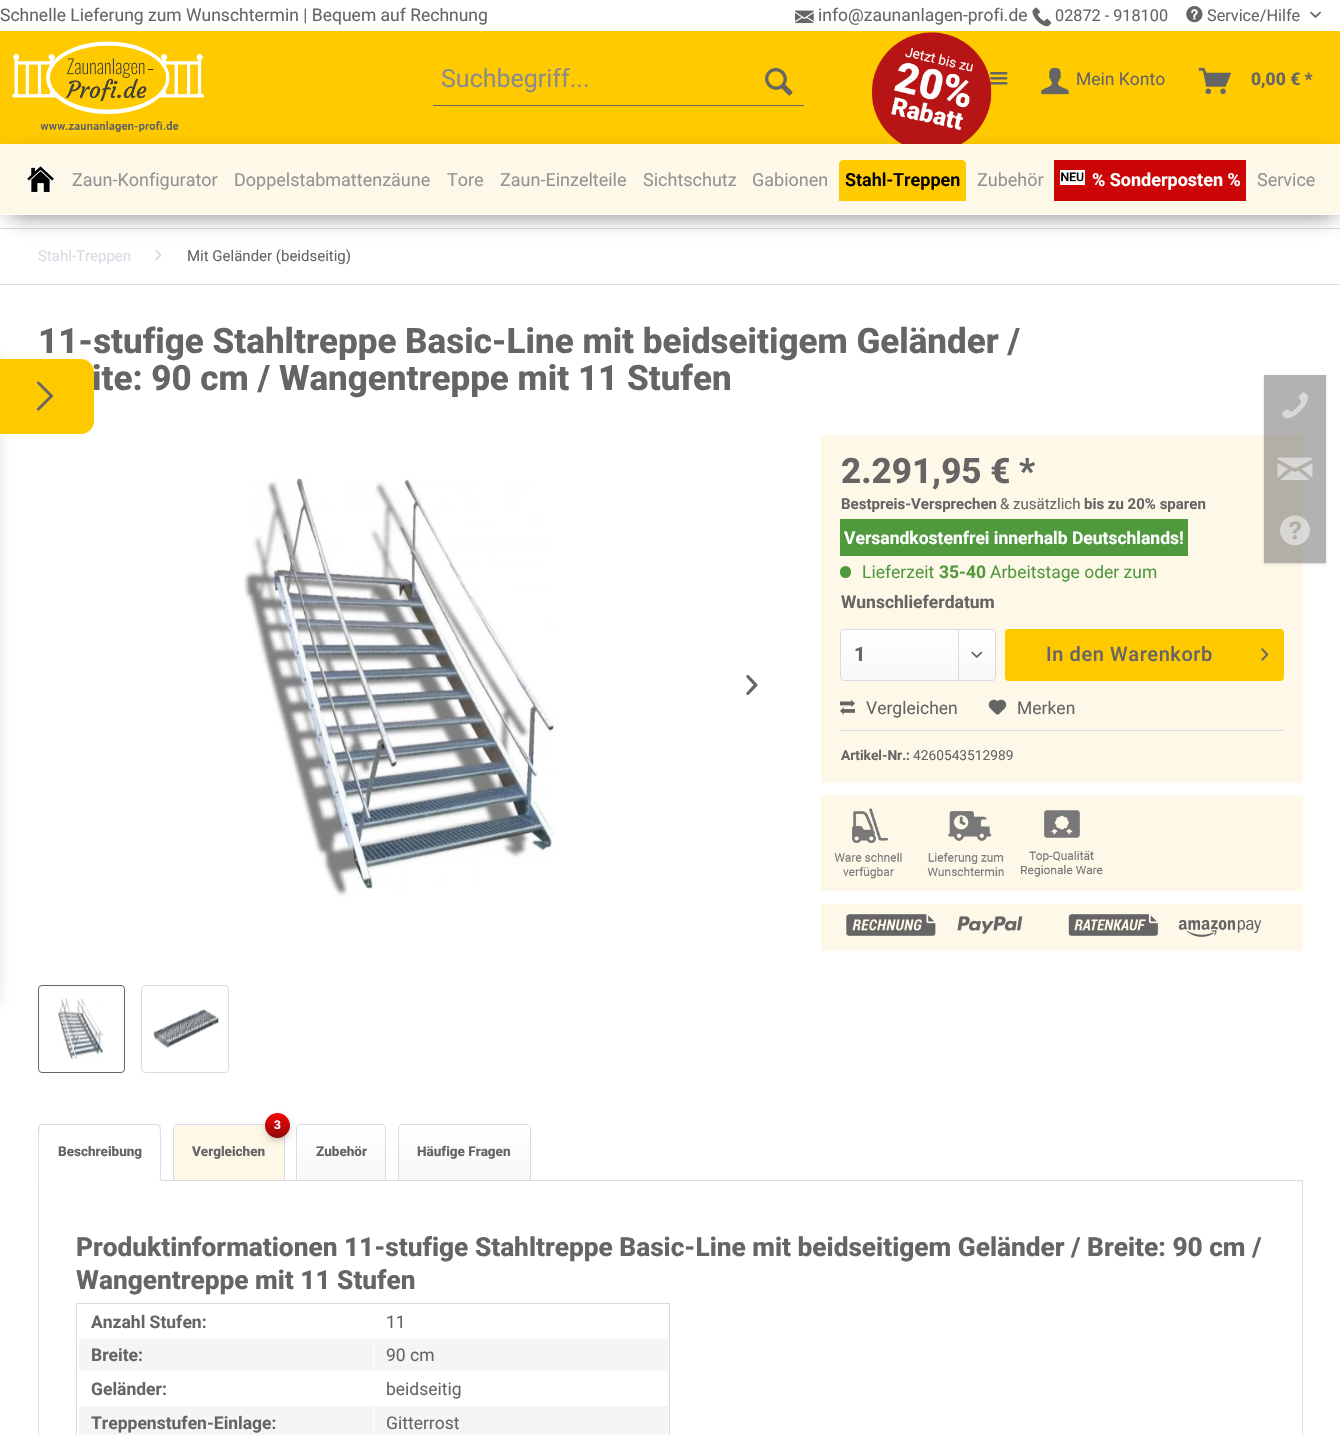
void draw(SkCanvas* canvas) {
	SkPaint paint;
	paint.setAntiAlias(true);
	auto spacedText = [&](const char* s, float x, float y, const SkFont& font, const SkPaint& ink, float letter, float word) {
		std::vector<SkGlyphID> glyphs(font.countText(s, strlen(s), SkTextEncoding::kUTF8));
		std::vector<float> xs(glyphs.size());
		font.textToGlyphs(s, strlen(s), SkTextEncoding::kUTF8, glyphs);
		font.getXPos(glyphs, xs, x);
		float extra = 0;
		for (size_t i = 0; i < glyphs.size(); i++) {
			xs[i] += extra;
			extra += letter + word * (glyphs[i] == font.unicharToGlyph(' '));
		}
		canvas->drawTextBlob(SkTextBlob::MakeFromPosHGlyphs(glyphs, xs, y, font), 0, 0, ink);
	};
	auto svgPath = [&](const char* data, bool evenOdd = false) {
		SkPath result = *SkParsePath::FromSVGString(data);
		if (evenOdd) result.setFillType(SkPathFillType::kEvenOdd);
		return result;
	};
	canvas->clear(0xffffffff);
	paint.setColor(0xffffca00);
	canvas->drawRect(SkRect::MakeXYWH(0, 31, 1340, 113), paint);
	SkFont f1(fontMgr->matchFamilyStyle("Roboto", SkFontStyle::Normal()), 17.5);
	f1.setSubpixel(true);
	paint.setColor(0xff656565);
	canvas->drawString("Schnelle Lieferung zum Wunschtermin | Bequem auf Rechnung", 0, 21, f1, paint);
	canvas->drawImageRect(SkImages::DeferredFromEncodedData(SkData::MakeFromFileName("img1.png")), SkRect::MakeXYWH(795, 10, 19, 14), SkSamplingOptions());
	canvas->drawString("info@zaunanlagen-profi.de", 818, 21, f1, paint);
	canvas->drawImageRect(SkImages::DeferredFromEncodedData(SkData::MakeFromFileName("img2.png")), SkRect::MakeXYWH(1032, 7, 20, 20), SkSamplingOptions());
	SkFont f2(fontMgr->matchFamilyStyle("Roboto", SkFontStyle::Normal()), 16.25);
	f2.setSubpixel(true);
	canvas->drawString("02872 - 918100", 1055, 21, f2, paint);
	canvas->drawImageRect(SkImages::DeferredFromEncodedData(SkData::MakeFromFileName("img3.png")), SkRect::MakeXYWH(1186, 6, 17, 17), SkSamplingOptions());
	canvas->drawString("Service/Hilfe", 1207, 21, f2, paint);
	canvas->drawImageRect(SkImages::DeferredFromEncodedData(SkData::MakeFromFileName("img4.png")), SkRect::MakeXYWH(1310, 11, 11, 7), SkSamplingOptions());
	canvas->drawImageRect(SkImages::DeferredFromEncodedData(SkData::MakeFromFileName("img5.png")), SkRect::MakeXYWH(12, 41, 192, 91), SkSamplingOptions());
	canvas->drawImageRect(SkImages::DeferredFromEncodedData(SkData::MakeFromFileName("img8.png")), SkRect::MakeXYWH(990, 72, 18, 13), SkSamplingOptions());
	canvas->drawImageRect(SkImages::DeferredFromEncodedData(SkData::MakeFromFileName("img6.png")), SkRect::MakeXYWH(872, 32, 120, 112), SkSamplingOptions());
	canvas->drawRect(SkRect::MakeXYWH(433, 105, 371, 1), paint);
	SkFont f3(fontMgr->matchFamilyStyle("Roboto", SkFontStyle::Normal()), 25);
	f3.setSubpixel(true);
	paint.setColor(0xff8b8b8b);
	canvas->drawString("Suchbegriff...", 441, 87, f3, paint);
	canvas->drawImageRect(SkImages::DeferredFromEncodedData(SkData::MakeFromFileName("img7.png")), SkRect::MakeXYWH(765, 68, 28, 28), SkSamplingOptions());
	canvas->drawImageRect(SkImages::DeferredFromEncodedData(SkData::MakeFromFileName("img9.png")), SkRect::MakeXYWH(1041, 67, 28, 28), SkSamplingOptions());
	paint.setColor(0xff656565);
	canvas->drawString("Mein Konto", 1076, 85, f1, paint);
	canvas->drawImageRect(SkImages::DeferredFromEncodedData(SkData::MakeFromFileName("img10.png")), SkRect::MakeXYWH(1198, 67, 34, 28), SkSamplingOptions());
	SkFont f4(fontMgr->matchFamilyStyle("Roboto", SkFontStyle(800, SkFontStyle::kNormal_Width, SkFontStyle::kUpright_Slant)), 17.5);
	f4.setSubpixel(true);
	canvas->drawString("0,00 € *", 1251, 85, f4, paint);
	paint.setColor(0xffdadae5);
	canvas->drawRect(SkRect::MakeXYWH(0, 228, 1340, 1), paint);
	paint.setColor(0x82000000);
	paint.setMaskFilter(SkMaskFilter::MakeBlur(kNormal_SkBlurStyle, 11));
	canvas->drawRect(SkRect::MakeXYWH(10, 159, 1325, 56), paint);
	paint.setMaskFilter(nullptr);
	paint.setColor(0xfffef8e9);
	canvas->drawRect(SkRect::MakeXYWH(0, 144, 1340, 70), paint);
	paint.setColor(0xffffffff);
	canvas->drawRect(SkRect::MakeXYWH(0, 214, 1340, 1), paint);
	canvas->drawImageRect(SkImages::DeferredFromEncodedData(SkData::MakeFromFileName("img11.png")), SkRect::MakeXYWH(26, 165, 29, 28), SkSamplingOptions());
	SkFont f5(fontMgr->matchFamilyStyle("Roboto", SkFontStyle::Normal()), 18);
	f5.setSubpixel(true);
	paint.setColor(0xff939393);
	canvas->drawString("Zaun-Konfigurator", 72, 186, f5, paint);
	canvas->drawString("Doppelstabmattenzäune", 234, 186, f5, paint);
	canvas->drawString("Tore", 447, 186, f5, paint);
	canvas->drawString("Zaun-Einzelteile", 500, 186, f5, paint);
	canvas->drawString("Sichtschutz", 643, 186, f5, paint);
	canvas->drawString("Gabionen", 752, 186, f5, paint);
	paint.setColor(0xffffca00);
	canvas->drawPath(svgPath("M843 160H962C964 160 966 162 966 164V201H839V164C839 162 841 160 843 160Z"), paint);
	SkFont f6(fontMgr->matchFamilyStyle("Roboto", SkFontStyle(600, SkFontStyle::kNormal_Width, SkFontStyle::kUpright_Slant)), 18);
	f6.setSubpixel(true);
	paint.setColor(0xff000000);
	canvas->drawString("Stahl-Treppen", 845, 186, f6, paint);
	paint.setColor(0xff939393);
	canvas->drawString("Zubehör", 977, 186, f5, paint);
	paint.setColor(0xffcc0606);
	canvas->drawRect(SkRect::MakeXYWH(1054, 160, 192, 41), paint);
	canvas->drawImageRect(SkImages::DeferredFromEncodedData(SkData::MakeFromFileName("img12.png")), SkRect::MakeXYWH(1060, 170, 25, 15), SkSamplingOptions());
	SkFont f7(fontMgr->matchFamilyStyle("Roboto", SkFontStyle::Bold()), 18);
	f7.setSubpixel(true);
	paint.setColor(0xffffffff);
	canvas->drawString("% Sonderposten %", 1092, 186, f7, paint);
	paint.setColor(0xff939393);
	canvas->drawString("Service", 1257, 186, f5, paint);
	paint.setColor(0xffdadae5);
	canvas->drawRect(SkRect::MakeXYWH(0, 284, 1340, 1), paint);
	SkFont f8(fontMgr->matchFamilyStyle("Roboto", SkFontStyle::Normal()), 15);
	f8.setSubpixel(true);
	canvas->drawString("Stahl-Treppen", 38, 261, f8, paint);
	canvas->drawImageRect(SkImages::DeferredFromEncodedData(SkData::MakeFromFileName("img13.png")), SkRect::MakeXYWH(155, 249, 7, 12), SkSamplingOptions());
	paint.setColor(0xff656565);
	canvas->drawString("Mit Geländer (beidseitig)", 187, 261, f8, paint);
	SkFont f9(fontMgr->matchFamilyStyle("Roboto", SkFontStyle(800, SkFontStyle::kNormal_Width, SkFontStyle::kUpright_Slant)), 35);
	f9.setSubpixel(true);
	canvas->drawString("11-stufige Stahltreppe Basic-Line mit beidseitigem Geländer /", 38, 353, f9, paint);
	canvas->drawString("ite: 90 cm / Wangentreppe mit 11 Stufen", 92, 390, f9, paint);
	canvas->drawImageRect(SkImages::DeferredFromEncodedData(SkData::MakeFromFileName("img14.png")), SkRect::MakeXYWH(243, 478, 312, 419), SkSamplingOptions());
	canvas->drawImageRect(SkImages::DeferredFromEncodedData(SkData::MakeFromFileName("img15.png")), SkRect::MakeXYWH(746, 675, 12, 20), SkSamplingOptions());
	paint.setStroke(true);
	paint.setStrokeWidth(1);
	canvas->drawRoundRect(SkRect::MakeXYWH(38.5, 985.5, 86, 87), 3.5, 3.5, paint);
	canvas->drawImageRect(SkImages::DeferredFromEncodedData(SkData::MakeFromFileName("img16.png")), SkRect::MakeXYWH(58, 998, 46, 62), SkSamplingOptions());
	paint.setColor(0xffdadae5);
	canvas->drawRoundRect(SkRect::MakeXYWH(141.5, 985.5, 87, 87), 3.5, 3.5, paint);
	canvas->drawImageRect(SkImages::DeferredFromEncodedData(SkData::MakeFromFileName("img17.png")), SkRect::MakeXYWH(153, 1009, 66, 40), SkSamplingOptions());
	paint.setStroke(false);
	paint.setColor(0xfffef8e9);
	canvas->drawRect(SkRect::MakeXYWH(821, 435, 482, 348), paint);
	paint.setColor(0xff656565);
	canvas->drawString("2.291,95 € *", 841, 483, f9, paint);
	SkFont f10(fontMgr->matchFamilyStyle("Roboto", SkFontStyle::Bold()), 15);
	f10.setSubpixel(true);
	canvas->drawString("Bestpreis-Versprechen", 841, 509, f10, paint);
	canvas->drawString("& zusätzlich", 1000, 509, f8, paint);
	canvas->drawString("bis zu 20% sparen", 1084, 509, f10, paint);
	paint.setColor(0xff50993d);
	canvas->drawRect(SkRect::MakeXYWH(840, 519, 348, 37), paint);
	SkFont f11(fontMgr->matchFamilyStyle("Roboto", SkFontStyle::Bold()), 17.5);
	f11.setSubpixel(true);
	paint.setColor(0xffffffff);
	canvas->drawString("Versandkostenfrei innerhalb Deutschlands!", 844, 544, f11, paint);
	paint.setColor(0xff50993d);
	canvas->drawRoundRect(SkRect::MakeXYWH(840, 566, 11, 12), 5.5, 5.5, paint);
	canvas->drawString("Lieferzeit", 862, 578, f1, paint);
	canvas->drawString("35-40", 939, 578, f11, paint);
	canvas->drawString("Arbeitstage oder zum", 990, 578, f1, paint);
	paint.setColor(0xff656565);
	canvas->drawString("Wunschlieferdatum", 841, 608, f11, paint);
	{
		const SkColor colors[] = {0xffffffff, 0xfff8f8fa};
		const float stops[] = {0, 1};
		const SkPoint ends[] = {{918, 630}, {918, 680}};
		paint.setShader(SkGradientShader::MakeLinear(ends, colors, stops, 2, SkTileMode::kClamp));
		paint.setAlpha(255);
	}
	canvas->drawRoundRect(SkRect::MakeXYWH(841, 630, 154, 50), 2.5, 2.5, paint);
	paint.setStroke(true);
	paint.setShader(nullptr);
	paint.setColor(0xffdadae5);
	canvas->drawRoundRect(SkRect::MakeXYWH(840.5, 629.5, 155, 51), 3.5, 3.5, paint);
	SkFont f12(fontMgr->matchFamilyStyle("Roboto", SkFontStyle(800, SkFontStyle::kNormal_Width, SkFontStyle::kUpright_Slant)), 20);
	f12.setSubpixel(true);
	paint.setStroke(false);
	paint.setColor(0xff656565);
	canvas->drawString("1", 854, 661, f12, paint);
	paint.setColor(0xffdadae5);
	canvas->drawRect(SkRect::MakeXYWH(958, 630, 1, 50), paint);
	canvas->drawImageRect(SkImages::DeferredFromEncodedData(SkData::MakeFromFileName("img18.png")), SkRect::MakeXYWH(971, 651, 12, 7), SkSamplingOptions());
	paint.setColor(0xffffc900);
	canvas->drawRoundRect(SkRect::MakeXYWH(1005, 629, 279, 52), 4, 4, paint);
	SkFont f13(fontMgr->matchFamilyStyle("Roboto", SkFontStyle(500, SkFontStyle::kNormal_Width, SkFontStyle::kUpright_Slant)), 20);
	f13.setSubpixel(true);
	paint.setColor(0xff656565);
	spacedText("In den Warenkorb", 1046, 661, f13, paint, 0.6, 0);
	canvas->drawImageRect(SkImages::DeferredFromEncodedData(SkData::MakeFromFileName("img19.png")), SkRect::MakeXYWH(1261, 648, 8, 13), SkSamplingOptions());
	paint.setColor(0xffdadae5);
	canvas->drawRect(SkRect::MakeXYWH(840, 730, 444, 1), paint);
	canvas->drawImageRect(SkImages::DeferredFromEncodedData(SkData::MakeFromFileName("img20.png")), SkRect::MakeXYWH(840, 699, 15, 16), SkSamplingOptions());
	paint.setColor(0xff656565);
	canvas->drawString("Vergleichen", 866, 714, f1, paint);
	canvas->drawImageRect(SkImages::DeferredFromEncodedData(SkData::MakeFromFileName("img21.png")), SkRect::MakeXYWH(988, 699, 19, 16), SkSamplingOptions());
	canvas->drawString("Merken", 1017, 714, f1, paint);
	SkFont f14(fontMgr->matchFamilyStyle("Roboto", SkFontStyle::Bold()), 13.75);
	f14.setSubpixel(true);
	canvas->drawString("Artikel-Nr.:", 841, 760, f14, paint);
	SkFont f15(fontMgr->matchFamilyStyle("Roboto", SkFontStyle::Normal()), 13.75);
	f15.setSubpixel(true);
	canvas->drawString("4260543512989", 913, 760, f15, paint);
	paint.setColor(0xfffef8e9);
	canvas->drawRect(SkRect::MakeXYWH(821, 795, 482, 96), paint);
	canvas->drawImageRect(SkImages::DeferredFromEncodedData(SkData::MakeFromFileName("img22.png")), SkRect::MakeXYWH(834, 808, 68, 71), SkSamplingOptions());
	canvas->drawImageRect(SkImages::DeferredFromEncodedData(SkData::MakeFromFileName("img23.png")), SkRect::MakeXYWH(927, 811, 77, 65), SkSamplingOptions());
	canvas->drawImageRect(SkImages::DeferredFromEncodedData(SkData::MakeFromFileName("img24.png")), SkRect::MakeXYWH(1020, 810, 83, 67), SkSamplingOptions());
	canvas->drawRect(SkRect::MakeXYWH(821, 904, 482, 47), paint);
	canvas->drawImageRect(SkImages::DeferredFromEncodedData(SkData::MakeFromFileName("img25.png")), SkRect::MakeXYWH(846, 914, 90, 22), SkSamplingOptions());
	canvas->drawImageRect(SkImages::DeferredFromEncodedData(SkData::MakeFromFileName("img26.png")), SkRect::MakeXYWH(957, 916, 66, 18), SkSamplingOptions());
	canvas->drawImageRect(SkImages::DeferredFromEncodedData(SkData::MakeFromFileName("img27.png")), SkRect::MakeXYWH(1068, 914, 90, 22), SkSamplingOptions());
	canvas->drawImageRect(SkImages::DeferredFromEncodedData(SkData::MakeFromFileName("img28.png")), SkRect::MakeXYWH(1178, 919, 84, 18), SkSamplingOptions());
	paint.setStroke(true);
	paint.setColor(0xffdadae5);
	canvas->drawRect(SkRect::MakeXYWH(38.5, 1180.5, 1264, 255), paint);
	paint.setStroke(false);
	paint.setColor(0xffffffff);
	canvas->drawPath(svgPath("M42 1124H157C159 1124 161 1126 161 1128V1181H38V1128C38 1126 40 1124 42 1124Z"), paint);
	paint.setColor(0xffdadae5);
	canvas->drawPath(svgPath("M41 1124L39 1125L40 1126L41 1125H158L159 1126L160 1125L158 1124Z"), paint);
	canvas->drawPath(svgPath("M161 1181C161 1174 162 1127 160 1125L159 1126C161 1128 160 1174 160 1180Z"), paint);
	paint.setColor(0xffffffff);
	canvas->drawPath(svgPath("M161 1181L160 1180H39L38 1181Z"), paint);
	paint.setColor(0xffdadae5);
	canvas->drawPath(svgPath("M39 1125L38 1128V1181L39 1180C39 1173 38 1128 40 1126Z"), paint);
	SkFont f16(fontMgr->matchFamilyStyle("Roboto", SkFontStyle(800, SkFontStyle::kNormal_Width, SkFontStyle::kUpright_Slant)), 13.5);
	f16.setSubpixel(true);
	paint.setColor(0xff656565);
	canvas->drawString("Beschreibung", 58, 1156, f16, paint);
	paint.setColor(0xfffef8e9);
	canvas->drawPath(svgPath("M176.5 1125H281.5C283 1125 284 1126 284 1127.5V1180H174V1127.5C174 1126 175 1125 176.5 1125Z"), paint);
	paint.setStroke(true);
	paint.setColor(0xffdadae5);
	canvas->drawPath(svgPath("M177 1124.5H281C283 1124.5 284.5 1126 284.5 1128V1180.5H173.5V1128C173.5 1126 175 1124.5 177 1124.5Z"), paint);
	paint.setStroke(false);
	paint.setColor(0xff000000);
	paint.setMaskFilter(SkMaskFilter::MakeBlur(kNormal_SkBlurStyle, 6));
	canvas->drawRoundRect(SkRect::MakeXYWH(271, 1123, 13, 12), 6, 6, paint);
	paint.setMaskFilter(nullptr);
	{
		const SkColor colors[] = {0xfff70505, 0xff8f0808};
		const float stops[] = {0, 1};
		const SkPoint ends[] = {{278, 1113}, {278, 1138}};
		paint.setShader(SkGradientShader::MakeLinear(ends, colors, stops, 2, SkTileMode::kClamp));
		paint.setAlpha(255);
	}
	canvas->drawCircle(277.5, 1125.5, 12.5, paint);
	SkFont f17(fontMgr->matchFamilyStyle("Roboto", SkFontStyle::Bold()), 12);
	f17.setSubpixel(true);
	paint.setShader(nullptr);
	paint.setColor(0xffffffff);
	canvas->drawString("3", 274, 1129, f17, paint);
	paint.setColor(0xff656565);
	canvas->drawString("Vergleichen", 192, 1156, f16, paint);
	{
		const SkColor colors[] = {0xffffffff, 0xfff8f8fa};
		const float stops[] = {0, 1};
		const SkPoint ends[] = {{341, 1125}, {341, 1180}};
		paint.setShader(SkGradientShader::MakeLinear(ends, colors, stops, 2, SkTileMode::kClamp));
		paint.setAlpha(255);
	}
	canvas->drawPath(svgPath("M300.5 1125H382.5C384 1125 385 1126 385 1127.5V1180H298V1127.5C298 1126 299 1125 300.5 1125Z"), paint);
	paint.setStroke(true);
	paint.setShader(nullptr);
	paint.setColor(0xffdadae5);
	canvas->drawPath(svgPath("M300 1124.5H382C384 1124.5 385.5 1126 385.5 1128V1180.5H296.5V1128C296.5 1126 298 1124.5 300 1124.5Z"), paint);
	paint.setStroke(false);
	paint.setColor(0xff656565);
	canvas->drawString("Zubehör", 316, 1156, f16, paint);
	{
		const SkColor colors[] = {0xffffffff, 0xfff8f8fa};
		const float stops[] = {0, 1};
		const SkPoint ends[] = {{464, 1125}, {464, 1180}};
		paint.setShader(SkGradientShader::MakeLinear(ends, colors, stops, 2, SkTileMode::kClamp));
		paint.setAlpha(255);
	}
	canvas->drawPath(svgPath("M401.5 1125H527.5C529 1125 530 1126 530 1127.5V1180H399V1127.5C399 1126 400 1125 401.5 1125Z"), paint);
	paint.setStroke(true);
	paint.setShader(nullptr);
	paint.setColor(0xffdadae5);
	canvas->drawPath(svgPath("M402 1124.5H527C529 1124.5 530.5 1126 530.5 1128V1180.5H398.5V1128C398.5 1126 400 1124.5 402 1124.5Z"), paint);
	paint.setStroke(false);
	paint.setColor(0xff656565);
	canvas->drawString("Häufige Fragen", 417, 1156, f16, paint);
	SkFont f18(fontMgr->matchFamilyStyle("Roboto", SkFontStyle(800, SkFontStyle::kNormal_Width, SkFontStyle::kUpright_Slant)), 26.25);
	f18.setSubpixel(true);
	canvas->drawString("Produktinformationen 11-stufige Stahltreppe Basic-Line mit beidseitigem Geländer / Breite: 90 cm /", 76, 1256, f18, paint);
	canvas->drawString("Wangentreppe mit 11 Stufen", 76, 1289, f18, paint);
	paint.setStroke(true);
	paint.setColor(0xffdadae5);
	canvas->drawRect(SkRect::MakeXYWH(76.5, 1303.5, 593, 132), paint);
	paint.setStroke(false);
	paint.setColor(0xff656565);
	canvas->drawString("Anzahl Stufen:", 91, 1328, f11, paint);
	canvas->drawString("11", 386, 1328, f1, paint);
	paint.setColor(0xfff5f5f5);
	canvas->drawRect(SkRect::MakeXYWH(79, 1339, 294, 32), paint);
	paint.setColor(0xff656565);
	canvas->drawString("Breite:", 91, 1361, f11, paint);
	paint.setColor(0xfff5f5f5);
	canvas->drawRect(SkRect::MakeXYWH(374, 1339, 294, 32), paint);
	paint.setColor(0xff656565);
	canvas->drawString("90 cm", 386, 1361, f1, paint);
	canvas->drawString("Geländer:", 91, 1395, f11, paint);
	canvas->drawString("beidseitig", 386, 1395, f1, paint);
	paint.setColor(0xfff5f5f5);
	canvas->drawRect(SkRect::MakeXYWH(79, 1406, 294, 29), paint);
	paint.setColor(0xff656565);
	canvas->drawString("Treppenstufen-Einlage:", 91, 1429, f11, paint);
	paint.setColor(0xfff5f5f5);
	canvas->drawRect(SkRect::MakeXYWH(374, 1406, 294, 29), paint);
	paint.setColor(0xff656565);
	canvas->drawString("Gitterrost", 386, 1429, f1, paint);
	paint.setColor(0x1a000000);
	paint.setMaskFilter(SkMaskFilter::MakeBlur(kNormal_SkBlurStyle, 6));
	canvas->drawRect(SkRect::MakeXYWH(-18, 359, 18, 642), paint);
	paint.setMaskFilter(nullptr);
	paint.setColor(0xffffc900);
	canvas->drawPath(svgPath("M0 359H81C88 359 94 365 94 372V421C94 428 88 434 81 434H0Z"), paint);
	canvas->drawImageRect(SkImages::DeferredFromEncodedData(SkData::MakeFromFileName("img29.png")), SkRect::MakeXYWH(37, 381, 17, 30), SkSamplingOptions());
	canvas->save();
	canvas->clipPath(svgPath("M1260 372H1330V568H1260ZM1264 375H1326V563H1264Z", true), true);
	paint.setColor(0x26000000);
	paint.setMaskFilter(SkMaskFilter::MakeBlur(kNormal_SkBlurStyle, 1));
	canvas->drawRect(SkRect::MakeXYWH(1264, 376, 62, 188), paint);
	paint.setMaskFilter(nullptr);
	canvas->restore();
	paint.setColor(0x80656565);
	canvas->drawRect(SkRect::MakeXYWH(1264, 375, 62, 188), paint);
	canvas->drawImageRect(SkImages::DeferredFromEncodedData(SkData::MakeFromFileName("img30.png")), SkRect::MakeXYWH(1282, 392, 26, 27), SkSamplingOptions());
	canvas->drawImageRect(SkImages::DeferredFromEncodedData(SkData::MakeFromFileName("img31.png")), SkRect::MakeXYWH(1277, 457, 36, 24), SkSamplingOptions());
	canvas->drawImageRect(SkImages::DeferredFromEncodedData(SkData::MakeFromFileName("img32.png")), SkRect::MakeXYWH(1280, 515, 30, 31), SkSamplingOptions());
}
